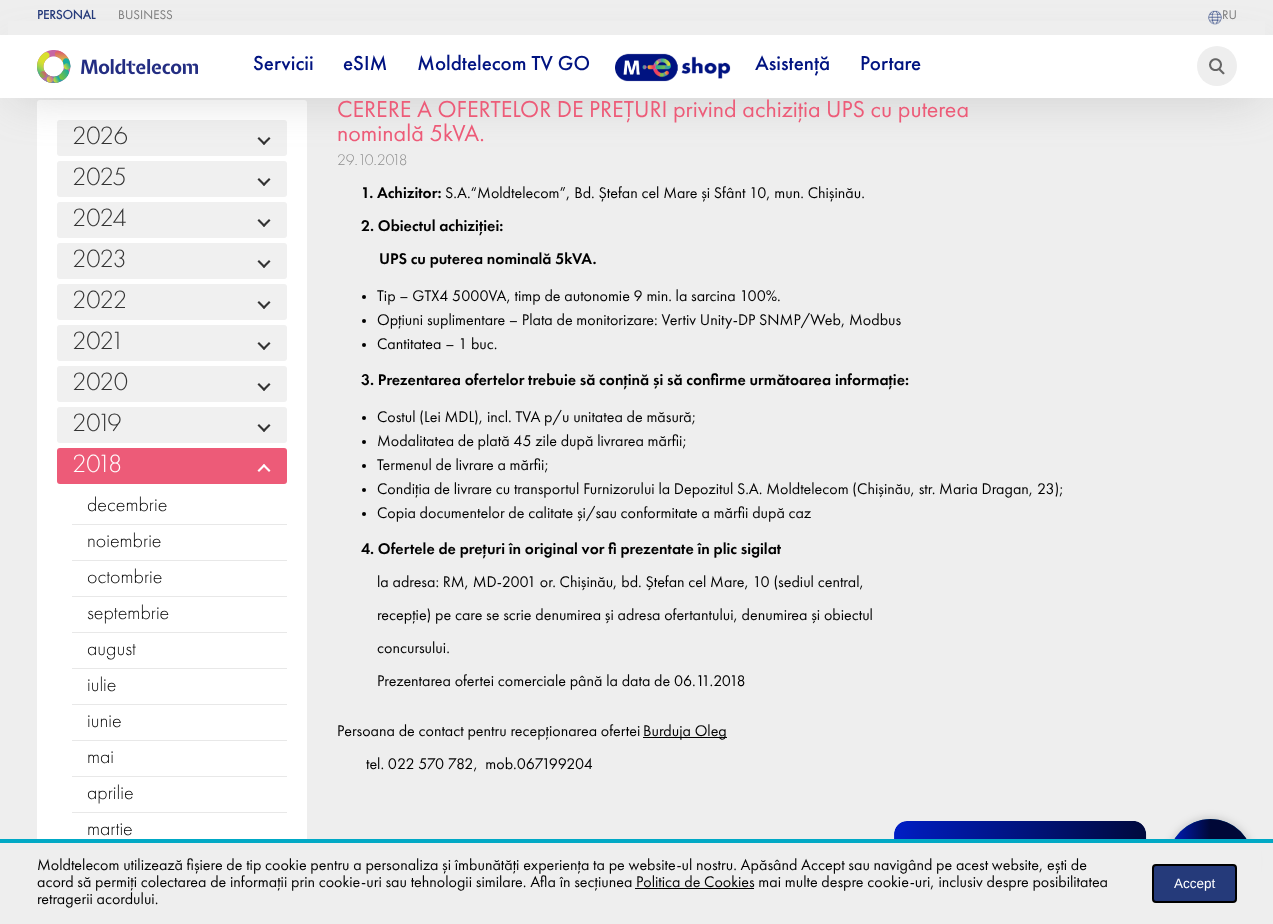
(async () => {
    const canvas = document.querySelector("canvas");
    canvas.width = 1273;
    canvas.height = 924;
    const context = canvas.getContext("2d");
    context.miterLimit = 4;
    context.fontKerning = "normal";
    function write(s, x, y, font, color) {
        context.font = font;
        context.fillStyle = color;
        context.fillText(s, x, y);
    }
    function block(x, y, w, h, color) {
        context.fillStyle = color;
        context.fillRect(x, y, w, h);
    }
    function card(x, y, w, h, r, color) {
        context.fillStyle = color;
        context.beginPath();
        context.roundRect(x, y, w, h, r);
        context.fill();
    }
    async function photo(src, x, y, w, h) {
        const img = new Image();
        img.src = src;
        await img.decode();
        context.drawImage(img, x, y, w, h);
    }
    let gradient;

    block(0, 0, 1273, 924, "rgb(238, 238, 238)");
    card(37, 100, 270, 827, 3, "rgb(255, 255, 255)");
    card(57, 120, 230, 36, 3, "rgb(240, 240, 240)");
    context.fillStyle = "rgb(51, 51, 51)";
    context.beginPath();
    context.moveTo(269, 137);
    context.lineTo(270.5, 138.5);
    context.lineTo(264, 145);
    context.lineTo(262.5, 143.5);
    context.closePath();
    context.fill();
    context.beginPath();
    context.moveTo(259, 137);
    context.lineTo(265.5, 143.5);
    context.lineTo(264, 145);
    context.lineTo(257.5, 138.5);
    context.closePath();
    context.fill();
    card(57, 161, 230, 36, 3, "rgb(240, 240, 240)");
    context.fillStyle = "rgba(133, 133, 133, 0.4)";
    context.filter = "blur(24px)";
    context.beginPath();
    context.rect(14, 58, 1245, 35);
    context.fill();
    context.filter = "none";
    block(8, 21, 1257, 14, "rgb(238, 238, 238)");
    write("PERSONAL", 37, 19, "bold 13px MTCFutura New", "rgb(37, 58, 122)");
    write("BUSINESS", 118, 19, "13px MTCFutura New", "rgb(124, 124, 124)");
    await photo("media/1.png", 1208, 10, 14, 15);
    write("RU", 1222, 19, "13px MTCFutura New", "rgb(124, 124, 124)");
    block(0, 35, 1273, 63, "rgb(255, 255, 255)");
    await photo("media/2.png", 37, 50, 161, 33);
    write("Servicii", 253, 70, "500 21px 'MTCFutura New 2'", "rgb(0, 19, 129)");
    write("eSIM", 343, 70, "500 21px 'MTCFutura New 2'", "rgb(0, 19, 129)");
    write("Moldtelecom TV GO", 417, 70, "500 21px 'MTCFutura New 2'", "rgb(0, 19, 129)");
    await photo("media/3.png", 615, 53, 116, 29);
    write("Asistență", 755, 70, "500 21px 'MTCFutura New 2'", "rgb(0, 19, 129)");
    write("Portare", 860, 70, "500 21px 'MTCFutura New 2'", "rgb(0, 19, 129)");
    context.fillStyle = "rgb(238, 238, 238)";
    context.beginPath();
    context.arc(1217, 66, 20, 0, Math.PI * 2);
    context.fill();
    await photo("media/4.png", 1209, 58, 16, 17);
    write("2026", 72, 144, "300 26px MTCFutura New", "rgb(51, 51, 51)");
    write("2025", 72, 185, "300 26px MTCFutura New", "rgb(51, 51, 51)");
    context.beginPath();
    context.moveTo(269, 178);
    context.lineTo(270.5, 179.5);
    context.lineTo(264, 186);
    context.lineTo(262.5, 184.5);
    context.closePath();
    context.fill();
    context.beginPath();
    context.moveTo(259, 178);
    context.lineTo(265.5, 184.5);
    context.lineTo(264, 186);
    context.lineTo(257.5, 179.5);
    context.closePath();
    context.fill();
    card(57, 202, 230, 36, 3, "rgb(240, 240, 240)");
    write("2024", 72, 226, "300 26px MTCFutura New", "rgb(51, 51, 51)");
    context.beginPath();
    context.moveTo(269, 219);
    context.lineTo(270.5, 220.5);
    context.lineTo(264, 227);
    context.lineTo(262.5, 225.5);
    context.closePath();
    context.fill();
    context.beginPath();
    context.moveTo(259, 219);
    context.lineTo(265.5, 225.5);
    context.lineTo(264, 227);
    context.lineTo(257.5, 220.5);
    context.closePath();
    context.fill();
    card(57, 243, 230, 36, 3, "rgb(240, 240, 240)");
    write("2023", 72, 267, "300 26px MTCFutura New", "rgb(51, 51, 51)");
    context.beginPath();
    context.moveTo(269, 260);
    context.lineTo(270.5, 261.5);
    context.lineTo(264, 268);
    context.lineTo(262.5, 266.5);
    context.closePath();
    context.fill();
    context.beginPath();
    context.moveTo(259, 260);
    context.lineTo(265.5, 266.5);
    context.lineTo(264, 268);
    context.lineTo(257.5, 261.5);
    context.closePath();
    context.fill();
    card(57, 284, 230, 36, 3, "rgb(240, 240, 240)");
    write("2022", 72, 308, "300 26px MTCFutura New", "rgb(51, 51, 51)");
    context.beginPath();
    context.moveTo(269, 301);
    context.lineTo(270.5, 302.5);
    context.lineTo(264, 309);
    context.lineTo(262.5, 307.5);
    context.closePath();
    context.fill();
    context.beginPath();
    context.moveTo(259, 301);
    context.lineTo(265.5, 307.5);
    context.lineTo(264, 309);
    context.lineTo(257.5, 302.5);
    context.closePath();
    context.fill();
    card(57, 325, 230, 36, 3, "rgb(240, 240, 240)");
    write("2021", 72, 349, "300 26px MTCFutura New", "rgb(51, 51, 51)");
    context.beginPath();
    context.moveTo(269, 342);
    context.lineTo(270.5, 343.5);
    context.lineTo(264, 350);
    context.lineTo(262.5, 348.5);
    context.closePath();
    context.fill();
    context.beginPath();
    context.moveTo(259, 342);
    context.lineTo(265.5, 348.5);
    context.lineTo(264, 350);
    context.lineTo(257.5, 343.5);
    context.closePath();
    context.fill();
    card(57, 366, 230, 36, 3, "rgb(240, 240, 240)");
    write("2020", 72, 390, "300 26px MTCFutura New", "rgb(51, 51, 51)");
    context.beginPath();
    context.moveTo(269, 383);
    context.lineTo(270.5, 384.5);
    context.lineTo(264, 391);
    context.lineTo(262.5, 389.5);
    context.closePath();
    context.fill();
    context.beginPath();
    context.moveTo(259, 383);
    context.lineTo(265.5, 389.5);
    context.lineTo(264, 391);
    context.lineTo(257.5, 384.5);
    context.closePath();
    context.fill();
    card(57, 407, 230, 36, 3, "rgb(240, 240, 240)");
    write("2019", 72, 431, "300 26px MTCFutura New", "rgb(51, 51, 51)");
    context.beginPath();
    context.moveTo(269, 424);
    context.lineTo(270.5, 425.5);
    context.lineTo(264, 432);
    context.lineTo(262.5, 430.5);
    context.closePath();
    context.fill();
    context.beginPath();
    context.moveTo(259, 424);
    context.lineTo(265.5, 430.5);
    context.lineTo(264, 432);
    context.lineTo(257.5, 425.5);
    context.closePath();
    context.fill();
    card(57, 448, 230, 36, 3, "rgb(237, 91, 120)");
    write("2018", 72, 472, "300 26px MTCFutura New", "rgb(255, 255, 255)");
    context.beginPath();
    context.moveTo(259, 472);
    context.lineTo(257.5, 470.5);
    context.lineTo(264, 464);
    context.lineTo(265.5, 465.5);
    context.closePath();
    context.fill();
    context.beginPath();
    context.moveTo(269, 472);
    context.lineTo(262.5, 465.5);
    context.lineTo(264, 464);
    context.lineTo(270.5, 470.5);
    context.closePath();
    context.fill();
    block(72, 524, 215, 1, "rgb(232, 232, 232)");
    write("decembrie", 87, 511, "300 20px MTCFutura New", "rgb(0, 0, 0)");
    block(72, 560, 215, 1, "rgb(232, 232, 232)");
    write("noiembrie", 87, 547, "300 20px MTCFutura New", "rgb(0, 0, 0)");
    block(72, 596, 215, 1, "rgb(232, 232, 232)");
    write("octombrie", 87, 583, "300 20px MTCFutura New", "rgb(0, 0, 0)");
    block(72, 632, 215, 1, "rgb(232, 232, 232)");
    write("septembrie", 87, 619, "300 20px MTCFutura New", "rgb(0, 0, 0)");
    block(72, 668, 215, 1, "rgb(232, 232, 232)");
    write("august", 87, 655, "300 20px MTCFutura New", "rgb(0, 0, 0)");
    block(72, 704, 215, 1, "rgb(232, 232, 232)");
    write("iulie", 87, 691, "300 20px MTCFutura New", "rgb(0, 0, 0)");
    block(72, 740, 215, 1, "rgb(232, 232, 232)");
    write("iunie", 87, 727, "300 20px MTCFutura New", "rgb(0, 0, 0)");
    block(72, 776, 215, 1, "rgb(232, 232, 232)");
    write("mai", 87, 763, "300 20px MTCFutura New", "rgb(0, 0, 0)");
    block(72, 812, 215, 1, "rgb(232, 232, 232)");
    write("aprilie", 87, 799, "300 20px MTCFutura New", "rgb(0, 0, 0)");
    write("martie", 87, 835, "300 20px MTCFutura New", "rgb(0, 0, 0)");
    write("CERERE A OFERTELOR DE PREŢURI privind achiziția UPS cu puterea", 337, 117, "24px MTCFutura New", "rgb(237, 91, 120)");
    write("nominală 5kVA.", 337, 141, "24px MTCFutura New", "rgb(237, 91, 120)");
    write("29.10.2018", 337, 165, "300 16px MTCFutura New", "rgb(142, 142, 142)");
    write("1. Achizitor:", 361, 198, "500 16px MTCFutura New", "rgb(0, 0, 0)");
    write("S.A.“Moldtelecom”, Bd. Ștefan cel Mare și Sfânt 10, mun. Chișinău.", 445, 198, "16px MTCFutura New", "rgb(0, 0, 0)");
    write("2. Obiectul achiziției:", 361, 231, "500 16px MTCFutura New", "rgb(0, 0, 0)");
    write("UPS cu puterea nominală 5kVA.", 379, 264, "500 16px MTCFutura New", "rgb(0, 0, 0)");
    context.beginPath();
    context.arc(364, 297, 2, 0, Math.PI * 2);
    context.fill();
    write("Tip – GTX4 5000VA, timp de autonomie 9 min. la sarcina 100%.", 377, 301, "16px MTCFutura New", "rgb(0, 0, 0)");
    context.beginPath();
    context.arc(364, 321, 2, 0, Math.PI * 2);
    context.fill();
    write("Opţiuni suplimentare – Plata de monitorizare: Vertiv Unity-DP SNMP/Web, Modbus", 377, 325, "16px MTCFutura New", "rgb(0, 0, 0)");
    context.beginPath();
    context.arc(364, 345, 2, 0, Math.PI * 2);
    context.fill();
    write("Cantitatea – 1 buc.", 377, 349, "16px MTCFutura New", "rgb(0, 0, 0)");
    write("3. Prezentarea ofertelor trebuie să conţină şi să confirme următoarea informaţie:", 361, 385, "500 16px MTCFutura New", "rgb(0, 0, 0)");
    context.beginPath();
    context.arc(364, 418, 2, 0, Math.PI * 2);
    context.fill();
    write("Costul (Lei MDL), incl. TVA p/u unitatea de măsură;", 377, 422, "16px MTCFutura New", "rgb(0, 0, 0)");
    context.beginPath();
    context.arc(364, 442, 2, 0, Math.PI * 2);
    context.fill();
    write("Modalitatea de plată 45 zile după livrarea mărfii;", 377, 446, "16px MTCFutura New", "rgb(0, 0, 0)");
    context.beginPath();
    context.arc(364, 466, 2, 0, Math.PI * 2);
    context.fill();
    write("Termenul de livrare a mărfii;", 377, 470, "16px MTCFutura New", "rgb(0, 0, 0)");
    context.beginPath();
    context.arc(364, 490, 2, 0, Math.PI * 2);
    context.fill();
    write("Condiţia de livrare cu transportul Furnizorului la Depozitul S.A. Moldtelecom (Chişinău, str. Maria Dragan, 23);", 377, 494, "16px MTCFutura New", "rgb(0, 0, 0)");
    context.beginPath();
    context.arc(364, 514, 2, 0, Math.PI * 2);
    context.fill();
    write("Copia documentelor de calitate şi/sau conformitate a mărfii după caz", 377, 518, "16px MTCFutura New", "rgb(0, 0, 0)");
    write("4. Ofertele de preţuri în original vor fi prezentate în plic sigilat", 361, 554, "500 16px MTCFutura New", "rgb(0, 0, 0)");
    write("la adresa: RM, MD-2001 or. Chişinău, bd. Ştefan cel Mare, 10 (sediul central,", 377, 587, "16px MTCFutura New", "rgb(0, 0, 0)");
    write("recepţie) pe care se scrie denumirea şi adresa ofertantului, denumirea şi obiectul", 377, 620, "16px MTCFutura New", "rgb(0, 0, 0)");
    write("concursului.", 377, 653, "16px MTCFutura New", "rgb(0, 0, 0)");
    write("Prezentarea ofertei comerciale până la data de 06.11.2018", 377, 686, "16px MTCFutura New", "rgb(0, 0, 0)");
    write("Persoana de contact pentru recepţionarea ofertei", 337, 736, "16px MTCFutura New", "rgb(0, 0, 0)");
    block(643, 737, 84, 1, "rgb(0, 0, 0)");
    write("Burduja Oleg", 643, 736, "16px MTCFutura New", "rgb(0, 0, 0)");
    write("tel. 022 570 782,  mob.067199204", 366, 769, "16px MTCFutura New", "rgb(0, 0, 0)");
    await photo("media/6.png", 1174, 819, 73, 20);
    await photo("media/7.png", 1174, 819, 73, 20);
    context.fillStyle = "rgba(0, 0, 0, 0.2)";
    context.filter = "blur(5px)";
    context.beginPath();
    context.roundRect(1168, 819, 85, 85, 42.5);
    context.fill();
    context.filter = "none";
    gradient = context.createLinearGradient(1168, 862, 1253, 862);
    gradient.addColorStop(0, "rgb(0, 30, 198)");
    gradient.addColorStop(0.5, "rgb(0, 8, 55)");
    context.fillStyle = gradient;
    context.beginPath();
    context.arc(1210.5, 861.5, 42.5, 0, Math.PI * 2);
    context.fill();
    await photo("media/5.png", 894, 821, 253, 18);
    gradient = context.createLinearGradient(657, 839, 657, 924);
    gradient.addColorStop(0, "rgb(0, 169, 198)");
    gradient.addColorStop(1, "rgb(40, 167, 154)");
    context.fillStyle = gradient;
    context.fillRect(0, 839, 1273, 4);
    block(37, 843, 1224, 81, "rgb(238, 238, 238)");
    write("Moldtelecom utilizează fișiere de tip cookie pentru a personaliza și îmbunătăți experiența ta pe website-ul nostru. Apăsând Accept sau navigând pe acest website, ești de", 37, 870, "16px MTCFutura New", "rgb(0, 0, 0)");
    write("acord să permiți colectarea de informații prin cookie-uri sau tehnologii similare. Afla în secțiunea Politica de Cookies mai multe despre cookie-uri, inclusiv despre posibilitatea", 37, 887, "16px MTCFutura New", "rgb(0, 0, 0)");
    block(635, 888, 119, 1, "rgb(0, 0, 0)");
    write("retragerii acordului.", 37, 904, "16px MTCFutura New", "rgb(0, 0, 0)");
    context.fillStyle = "rgb(37, 58, 122)";
    context.beginPath();
    context.roundRect(1153, 865, 83, 37, 3);
    context.fill();
    context.strokeStyle = "rgb(0, 0, 0)";
    context.lineWidth = 2;
    context.stroke();
    write("Accept", 1174, 888, "13.5px Liberation Sans", "rgb(255, 255, 255)");
})();
